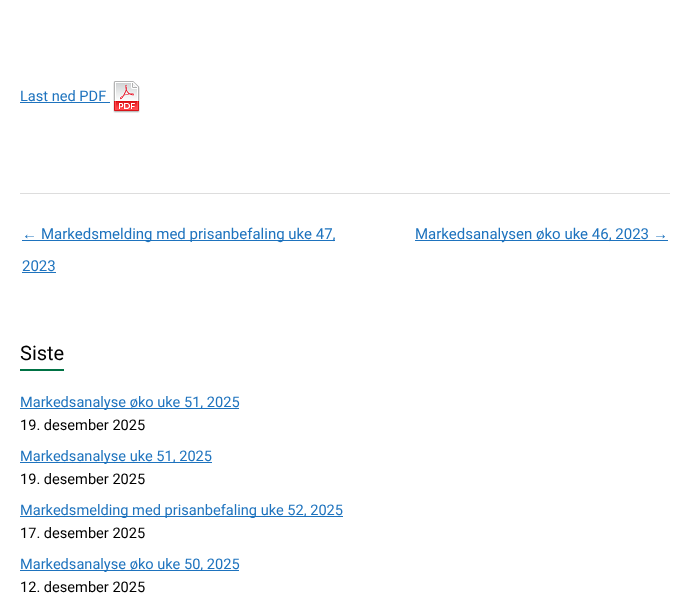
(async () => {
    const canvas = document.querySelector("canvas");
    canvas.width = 690;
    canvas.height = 609;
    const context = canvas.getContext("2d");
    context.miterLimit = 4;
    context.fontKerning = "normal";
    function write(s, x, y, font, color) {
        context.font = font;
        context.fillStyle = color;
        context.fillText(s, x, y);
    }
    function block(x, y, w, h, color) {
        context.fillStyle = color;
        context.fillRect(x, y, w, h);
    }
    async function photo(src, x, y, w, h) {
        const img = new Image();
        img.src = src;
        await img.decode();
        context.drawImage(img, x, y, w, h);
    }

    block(0, 0, 690, 609, "rgb(255, 255, 255)");
    write("Last ned PDF", 20, 101, "14.6px Roboto", "rgb(30, 115, 190)");
    block(20, 102, 90, 1, "rgb(30, 115, 190)");
    await photo("media/1.png", 113, 81, 27, 32);
    block(20, 193, 650, 1, "rgb(221, 221, 221)");
    write("←", 22, 239, "15px Liberation Sans", "rgb(30, 115, 190)");
    block(22, 240, 313, 1, "rgb(30, 115, 190)");
    write("Markedsmelding med prisanbefaling uke 47,", 41, 239, "15px Roboto", "rgb(30, 115, 190)");
    write("2023", 22, 271, "15px Roboto", "rgb(30, 115, 190)");
    block(22, 272, 34, 1, "rgb(30, 115, 190)");
    block(415, 240, 253, 1, "rgb(30, 115, 190)");
    write("Markedsanalysen øko uke 46, 2023", 415, 239, "15px Roboto", "rgb(30, 115, 190)");
    write("→", 653, 239, "15px Liberation Sans", "rgb(30, 115, 190)");
    block(20, 369, 44, 2, "rgb(0, 114, 68)");
    write("Siste", 20, 360, "20px Roboto", "rgb(0, 0, 0)");
    block(20, 408, 219, 1, "rgb(30, 115, 190)");
    write("Markedsanalyse øko uke 51, 2025", 20, 407, "14.6px Roboto", "rgb(30, 115, 190)");
    write("19. desember 2025", 20, 430, "14.6px Roboto", "rgb(0, 0, 0)");
    block(20, 462, 192, 1, "rgb(30, 115, 190)");
    write("Markedsanalyse uke 51, 2025", 20, 461, "14.6px Roboto", "rgb(30, 115, 190)");
    write("19. desember 2025", 20, 484, "14.6px Roboto", "rgb(0, 0, 0)");
    block(20, 516, 323, 1, "rgb(30, 115, 190)");
    write("Markedsmelding med prisanbefaling uke 52, 2025", 20, 515, "14.6px Roboto", "rgb(30, 115, 190)");
    write("17. desember 2025", 20, 538, "14.6px Roboto", "rgb(0, 0, 0)");
    block(20, 570, 219, 1, "rgb(30, 115, 190)");
    write("Markedsanalyse øko uke 50, 2025", 20, 569, "14.6px Roboto", "rgb(30, 115, 190)");
    write("12. desember 2025", 20, 592, "14.6px Roboto", "rgb(0, 0, 0)");
})();
